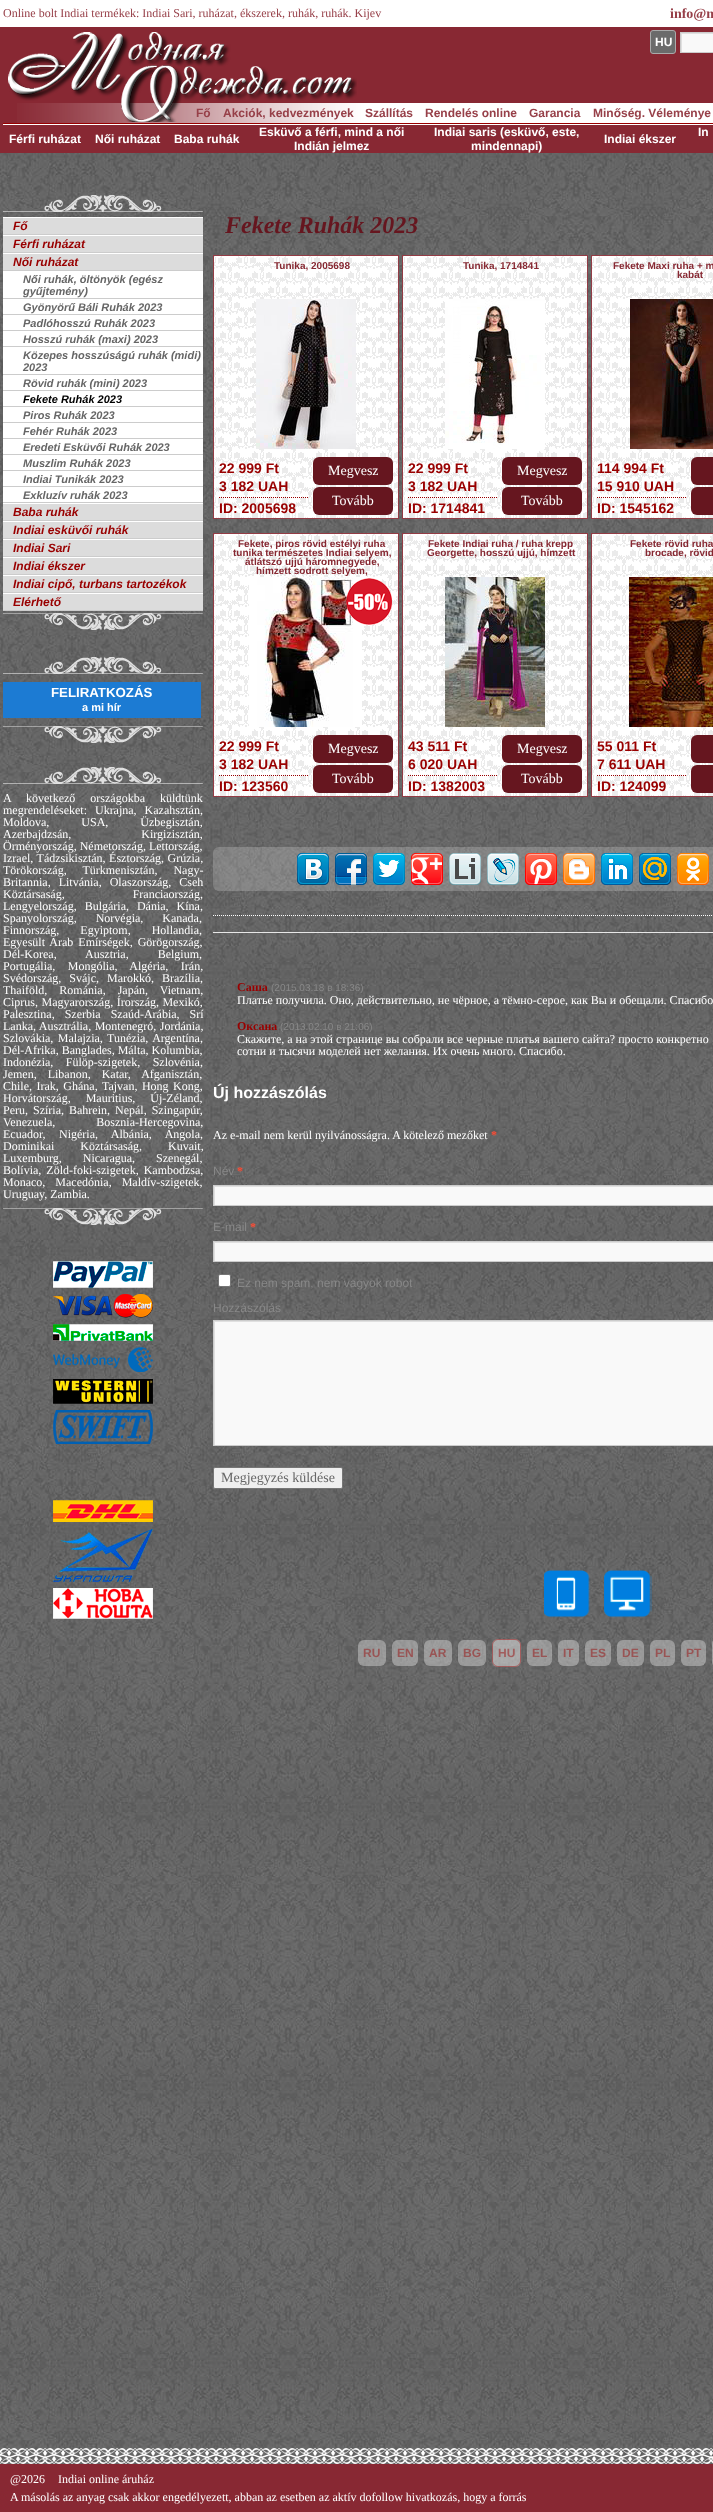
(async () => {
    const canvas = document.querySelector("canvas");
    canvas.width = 713;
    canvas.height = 2512;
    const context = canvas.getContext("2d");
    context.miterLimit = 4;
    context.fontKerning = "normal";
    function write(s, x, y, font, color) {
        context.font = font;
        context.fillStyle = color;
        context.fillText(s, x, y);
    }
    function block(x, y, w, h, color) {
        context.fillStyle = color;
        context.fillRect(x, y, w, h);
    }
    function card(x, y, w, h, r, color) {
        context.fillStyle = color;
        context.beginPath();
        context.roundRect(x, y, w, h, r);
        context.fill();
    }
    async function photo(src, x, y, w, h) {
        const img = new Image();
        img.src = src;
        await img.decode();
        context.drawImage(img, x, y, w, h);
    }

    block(0, 0, 713, 2512, "rgb(255, 255, 255)");
    await photo("media/1.png", 0, 153, 713, 2311);
    write("Online bolt Indiai termékek: Indiai Sari, ruházat, ékszerek, ruhák, ruhák. Kijev", 3, 17, "12px Liberation Serif", "rgb(151, 64, 73)");
    write("info@m", 670, 18, "bold 14px Liberation Serif", "rgb(151, 64, 73)");
    block(0, 27, 713, 126, "rgb(136, 40, 51)");
    await photo("media/3.png", 17, 103, 696, 20);
    await photo("media/2.png", 8, 32, 349, 90);
    context.fillStyle = "rgb(107, 107, 107)";
    context.beginPath();
    context.roundRect(650.5, 30.5, 25, 23, 2.5);
    context.fill();
    context.strokeStyle = "rgb(170, 170, 170)";
    context.stroke();
    write("HU", 655, 46, "bold 12px Liberation Sans", "rgb(255, 255, 255)");
    block(682, 34, 31, 18, "rgb(249, 249, 249)");
    context.save();
    context.beginPath();
    context.rect(681, 33, 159, 19);
    context.clip();
    context.fillStyle = "rgb(224, 224, 224)";
    context.beginPath();
    context.moveTo(582, -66);
    context.lineTo(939, -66);
    context.lineTo(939, 151);
    context.lineTo(582, 151);
    context.closePath();
    context.moveTo(682, 34);
    context.lineTo(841, 34);
    context.lineTo(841, 53);
    context.lineTo(682, 53);
    context.closePath();
    context.fill("evenodd");
    context.restore();
    context.strokeStyle = "rgb(204, 204, 204)";
    context.strokeRect(680.5, 32.5, 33, 20);
    block(3, 123, 710, 1, "rgb(153, 0, 0)");
    write("Fő", 196, 117, "bold 12px Liberation Sans", "rgb(151, 64, 73)");
    write("Akciók, kedvezmények", 223, 117, "bold 12px Liberation Sans", "rgb(151, 64, 73)");
    write("Szállítás", 365, 117, "bold 12px Liberation Sans", "rgb(151, 64, 73)");
    write("Rendelés online", 425, 117, "bold 12px Liberation Sans", "rgb(151, 64, 73)");
    write("Garancia", 529, 117, "bold 12px Liberation Sans", "rgb(151, 64, 73)");
    write("Minőség. Véleménye", 593, 117, "bold 12px Liberation Sans", "rgb(151, 64, 73)");
    block(3, 124, 710, 1, "rgb(255, 255, 255)");
    write("Esküvő a férfi, mind a női", 259, 136, "bold 12px Liberation Sans", "rgb(255, 255, 255)");
    write("Indián jelmez", 294, 150, "bold 12px Liberation Sans", "rgb(255, 255, 255)");
    write("Indiai saris (esküvő, este,", 434, 136, "bold 12px Liberation Sans", "rgb(255, 255, 255)");
    write("mindennapi)", 471, 150, "bold 12px Liberation Sans", "rgb(255, 255, 255)");
    write("In", 698, 136, "bold 12px Liberation Sans", "rgb(255, 255, 255)");
    write("Férfi ruházat", 9, 143, "bold 12px Liberation Sans", "rgb(255, 255, 255)");
    write("Női ruházat", 95, 143, "bold 12px Liberation Sans", "rgb(255, 255, 255)");
    write("Baba ruhák", 174, 143, "bold 12px Liberation Sans", "rgb(255, 255, 255)");
    write("Indiai ékszer", 604, 143, "bold 12px Liberation Sans", "rgb(255, 255, 255)");
    await photo("media/4.png", 3, 195, 200, 17);
    block(3, 218, 200, 16, "rgb(220, 220, 220)");
    block(3, 217, 200, 1, "rgb(255, 255, 255)");
    block(3, 234, 200, 1, "rgb(204, 204, 204)");
    write("Fő", 13, 230, "italic bold 12px Liberation Sans", "rgb(153, 0, 0)");
    block(3, 236, 200, 16, "rgb(220, 220, 220)");
    block(3, 235, 200, 1, "rgb(255, 255, 255)");
    block(3, 252, 200, 1, "rgb(204, 204, 204)");
    write("Férfi ruházat", 13, 248, "italic bold 12px Liberation Sans", "rgb(153, 0, 0)");
    block(3, 254, 200, 16, "rgb(220, 220, 220)");
    block(3, 253, 200, 1, "rgb(255, 255, 255)");
    block(3, 270, 200, 1, "rgb(204, 204, 204)");
    write("Női ruházat", 13, 266, "italic bold 12px Liberation Sans", "rgb(153, 0, 0)");
    block(3, 271, 200, 27, "rgb(255, 255, 255)");
    block(3, 298, 200, 1, "rgb(204, 204, 204)");
    write("Női ruhák, öltönyök (egész", 23, 283, "italic bold 11px Liberation Sans", "rgb(102, 102, 102)");
    write("gyűjtemény)", 23, 295, "italic bold 11px Liberation Sans", "rgb(102, 102, 102)");
    block(3, 299, 200, 15, "rgb(255, 255, 255)");
    block(3, 314, 200, 1, "rgb(204, 204, 204)");
    write("Gyönyörű Báli Ruhák 2023", 23, 311, "italic bold 11px Liberation Sans", "rgb(102, 102, 102)");
    block(3, 315, 200, 15, "rgb(255, 255, 255)");
    block(3, 330, 200, 1, "rgb(204, 204, 204)");
    write("Padlóhosszú Ruhák 2023", 23, 327, "italic bold 11px Liberation Sans", "rgb(102, 102, 102)");
    block(3, 331, 200, 15, "rgb(255, 255, 255)");
    block(3, 346, 200, 1, "rgb(204, 204, 204)");
    write("Hosszú ruhák (maxi) 2023", 23, 343, "italic bold 11px Liberation Sans", "rgb(102, 102, 102)");
    block(3, 347, 200, 27, "rgb(255, 255, 255)");
    block(3, 374, 200, 1, "rgb(204, 204, 204)");
    write("Közepes hosszúságú ruhák (midi)", 23, 359, "italic bold 11px Liberation Sans", "rgb(102, 102, 102)");
    write("2023", 23, 371, "italic bold 11px Liberation Sans", "rgb(102, 102, 102)");
    block(3, 375, 200, 15, "rgb(255, 255, 255)");
    block(3, 390, 200, 1, "rgb(204, 204, 204)");
    write("Rövid ruhák (mini) 2023", 23, 387, "italic bold 11px Liberation Sans", "rgb(102, 102, 102)");
    block(3, 391, 200, 15, "rgb(255, 255, 255)");
    block(3, 406, 200, 1, "rgb(204, 204, 204)");
    write("Fekete Ruhák 2023", 23, 403, "italic bold 11px Liberation Sans", "rgb(0, 0, 0)");
    block(3, 407, 200, 15, "rgb(255, 255, 255)");
    block(3, 422, 200, 1, "rgb(204, 204, 204)");
    write("Piros Ruhák 2023", 23, 419, "italic bold 11px Liberation Sans", "rgb(102, 102, 102)");
    block(3, 423, 200, 15, "rgb(255, 255, 255)");
    block(3, 438, 200, 1, "rgb(204, 204, 204)");
    write("Fehér Ruhák 2023", 23, 435, "italic bold 11px Liberation Sans", "rgb(102, 102, 102)");
    block(3, 439, 200, 15, "rgb(255, 255, 255)");
    block(3, 454, 200, 1, "rgb(204, 204, 204)");
    write("Eredeti Esküvői Ruhák 2023", 23, 451, "italic bold 11px Liberation Sans", "rgb(102, 102, 102)");
    block(3, 455, 200, 15, "rgb(255, 255, 255)");
    block(3, 470, 200, 1, "rgb(204, 204, 204)");
    write("Muszlim Ruhák 2023", 23, 467, "italic bold 11px Liberation Sans", "rgb(102, 102, 102)");
    block(3, 471, 200, 15, "rgb(255, 255, 255)");
    block(3, 486, 200, 1, "rgb(204, 204, 204)");
    write("Indiai Tunikák 2023", 23, 483, "italic bold 11px Liberation Sans", "rgb(102, 102, 102)");
    block(3, 487, 200, 15, "rgb(255, 255, 255)");
    block(3, 502, 200, 1, "rgb(204, 204, 204)");
    write("Exkluzív ruhák 2023", 23, 499, "italic bold 11px Liberation Sans", "rgb(102, 102, 102)");
    block(3, 504, 200, 16, "rgb(220, 220, 220)");
    block(3, 503, 200, 1, "rgb(255, 255, 255)");
    block(3, 520, 200, 1, "rgb(204, 204, 204)");
    write("Baba ruhák", 13, 516, "italic bold 12px Liberation Sans", "rgb(153, 0, 0)");
    block(3, 522, 200, 16, "rgb(220, 220, 220)");
    block(3, 521, 200, 1, "rgb(255, 255, 255)");
    block(3, 538, 200, 1, "rgb(204, 204, 204)");
    write("Indiai esküvői ruhák", 13, 534, "italic bold 12px Liberation Sans", "rgb(153, 0, 0)");
    block(3, 540, 200, 16, "rgb(220, 220, 220)");
    block(3, 539, 200, 1, "rgb(255, 255, 255)");
    block(3, 556, 200, 1, "rgb(204, 204, 204)");
    write("Indiai Sari", 13, 552, "italic bold 12px Liberation Sans", "rgb(153, 0, 0)");
    block(3, 558, 200, 16, "rgb(220, 220, 220)");
    block(3, 557, 200, 1, "rgb(255, 255, 255)");
    block(3, 574, 200, 1, "rgb(204, 204, 204)");
    write("Indiai ékszer", 13, 570, "italic bold 12px Liberation Sans", "rgb(153, 0, 0)");
    block(3, 576, 200, 16, "rgb(220, 220, 220)");
    block(3, 575, 200, 1, "rgb(255, 255, 255)");
    block(3, 592, 200, 1, "rgb(204, 204, 204)");
    write("Indiai cipő, turbans tartozékok", 13, 588, "italic bold 12px Liberation Sans", "rgb(153, 0, 0)");
    block(3, 594, 200, 16, "rgb(220, 220, 220)");
    block(3, 593, 200, 1, "rgb(255, 255, 255)");
    block(3, 610, 200, 1, "rgb(204, 204, 204)");
    write("Elérhető", 13, 606, "italic bold 12px Liberation Sans", "rgb(153, 0, 0)");
    await photo("media/5.png", 3, 613, 200, 17);
    await photo("media/6.png", 3, 657, 200, 17);
    block(3, 682, 198, 36, "rgb(28, 123, 211)");
    write("FELIRATKOZÁS", 51, 697, "bold 13.25px Liberation Sans", "rgb(255, 255, 255)");
    write("a mi hír", 82, 711, "bold 11px Liberation Sans", "rgb(255, 255, 255)");
    await photo("media/7.png", 3, 726, 200, 17);
    await photo("media/8.png", 3, 767, 200, 17);
    context.wordSpacing = "12px";
    write("A következő országokba küldtünk", 3, 802, "12px Liberation Serif", "rgb(255, 255, 255)");
    context.wordSpacing = "5px";
    write("megrendeléseket: Ukrajna, Kazahsztán,", 3, 814, "12px Liberation Serif", "rgb(255, 255, 255)");
    context.wordSpacing = "29px";
    write("Moldova, USA, Üzbegisztán,", 3, 826, "12px Liberation Serif", "rgb(255, 255, 255)");
    context.wordSpacing = "67px";
    write("Azerbajdzsán, Kirgizisztán,", 3, 838, "12px Liberation Serif", "rgb(255, 255, 255)");
    context.wordSpacing = "0px";
    write("Örményország, Németország, Lettország,", 3, 850, "12px Liberation Serif", "rgb(255, 255, 255)");
    context.wordSpacing = "0.5px";
    write("Izrael, Tádzsikisztán, Észtország, Grúzia,", 3, 862, "12px Liberation Serif", "rgb(255, 255, 255)");
    context.wordSpacing = "13px";
    write("Törökország, Türkmenisztán, Nagy-", 3, 874, "12px Liberation Serif", "rgb(255, 255, 255)");
    context.wordSpacing = "5px";
    write("Britannia, Litvánia, Olaszország, Cseh", 3, 886, "12px Liberation Serif", "rgb(255, 255, 255)");
    context.wordSpacing = "65px";
    write("Köztársaság, Franciaország,", 3, 898, "12px Liberation Serif", "rgb(255, 255, 255)");
    context.wordSpacing = "5px";
    write("Lengyelország, Bulgária, Dánia, Kína,", 3, 910, "12px Liberation Serif", "rgb(255, 255, 255)");
    context.wordSpacing = "16px";
    write("Spanyolország, Norvégia, Kanada,", 3, 922, "12px Liberation Serif", "rgb(255, 255, 255)");
    context.wordSpacing = "18px";
    write("Finnország, Egyiptom, Hollandia,", 3, 934, "12px Liberation Serif", "rgb(255, 255, 255)");
    context.wordSpacing = "2px";
    write("Egyesült Arab Emírségek, Görögország,", 3, 946, "12px Liberation Serif", "rgb(255, 255, 255)");
    context.wordSpacing = "26px";
    write("Dél-Korea, Ausztria, Belgium,", 3, 958, "12px Liberation Serif", "rgb(255, 255, 255)");
    context.wordSpacing = "9.5px";
    write("Portugália, Mongólia, Algéria, Irán,", 3, 970, "12px Liberation Serif", "rgb(255, 255, 255)");
    context.wordSpacing = "5px";
    write("Svédország, Svájc, Marokkó, Brazília,", 3, 982, "12px Liberation Serif", "rgb(255, 255, 255)");
    context.wordSpacing = "9px";
    write("Thaiföld, Románia, Japán, Vietnam,", 3, 994, "12px Liberation Serif", "rgb(255, 255, 255)");
    context.wordSpacing = "0.5px";
    write("Ciprus, Magyarország, Írország, Mexikó,", 3, 1006, "12px Liberation Serif", "rgb(255, 255, 255)");
    context.wordSpacing = "7px";
    write("Palesztina, Szerbia Szaúd-Arábia, Srí", 3, 1018, "12px Liberation Serif", "rgb(255, 255, 255)");
    context.wordSpacing = "0.5px";
    write("Lanka, Ausztrália, Montenegró, Jordánia,", 3, 1030, "12px Liberation Serif", "rgb(255, 255, 255)");
    context.wordSpacing = "1.5px";
    write("Szlovákia, Malajzia, Tunézia, Argentína,", 3, 1042, "12px Liberation Serif", "rgb(255, 255, 255)");
    context.wordSpacing = "0px";
    write("Dél-Afrika, Banglades, Málta, Kolumbia,", 3, 1054, "12px Liberation Serif", "rgb(255, 255, 255)");
    context.wordSpacing = "9.5px";
    write("Indonézia, Fülöp-szigetek, Szlovénia,", 3, 1066, "12px Liberation Serif", "rgb(255, 255, 255)");
    context.wordSpacing = "8px";
    write("Jemen, Libanon, Katar, Afganisztán,", 3, 1078, "12px Liberation Serif", "rgb(255, 255, 255)");
    context.wordSpacing = "1.5px";
    write("Chile, Irak, Ghána, Tajvan, Hong Kong,", 3, 1090, "12px Liberation Serif", "rgb(255, 255, 255)");
    context.wordSpacing = "12px";
    write("Horvátország, Mauritius, Új-Zéland,", 3, 1102, "12px Liberation Serif", "rgb(255, 255, 255)");
    context.wordSpacing = "2px";
    write("Peru, Szíria, Bahrein, Nepál, Szingapúr,", 3, 1114, "12px Liberation Serif", "rgb(255, 255, 255)");
    context.wordSpacing = "38px";
    write("Venezuela, Bosznia-Hercegovina,", 3, 1126, "12px Liberation Serif", "rgb(255, 255, 255)");
    context.wordSpacing = "10.5px";
    write("Ecuador, Nigéria, Albánia, Angola,", 3, 1138, "12px Liberation Serif", "rgb(255, 255, 255)");
    context.wordSpacing = "23px";
    write("Dominikai Köztársaság, Kuvait,", 3, 1150, "12px Liberation Serif", "rgb(255, 255, 255)");
    context.wordSpacing = "18px";
    write("Luxemburg, Nicaragua, Szenegál,", 3, 1162, "12px Liberation Serif", "rgb(255, 255, 255)");
    context.wordSpacing = "2px";
    write("Bolívia, Zöld-foki-szigetek, Kambodzsa,", 3, 1174, "12px Liberation Serif", "rgb(255, 255, 255)");
    context.wordSpacing = "7px";
    write("Monaco, Macedónia, Maldív-szigetek,", 3, 1186, "12px Liberation Serif", "rgb(255, 255, 255)");
    context.wordSpacing = "0px";
    write("Uruguay, Zambia.", 3, 1198, "12px Liberation Serif", "rgb(255, 255, 255)");
    await photo("media/9.png", 3, 1208, 200, 17);
    await photo("media/10.png", 53, 1261, 100, 183);
    await photo("media/11.png", 53, 1500, 100, 119);
    write("Fekete Ruhák 2023", 225, 233, "italic bold 24px Liberation Serif", "rgb(102, 22, 31)");
    await photo("media/12.png", 214, 256, 184, 262);
    context.strokeStyle = "rgb(147, 60, 69)";
    context.strokeRect(213.5, 255.5, 185, 263);
    write("Tunika, 2005698", 274, 269, "bold 10px Liberation Sans", "rgb(135, 40, 50)");
    await photo("media/13.png", 256, 299, 100, 150);
    write("22 999 Ft", 219, 473, "bold 14px Liberation Sans", "rgb(153, 0, 0)");
    write("3 182 UAH", 219, 491, "bold 14px Liberation Sans", "rgb(153, 0, 0)");
    context.beginPath();
    context.moveTo(219, 497.5);
    context.lineTo(309, 497.5);
    context.strokeStyle = "rgb(153, 0, 0)";
    context.setLineDash([1, 1]);
    context.stroke();
    write("ID: 2005698", 219, 513, "bold 14px Liberation Sans", "rgb(153, 0, 0)");
    card(313, 457, 80, 28, 6, "rgb(102, 22, 31)");
    write("Megvesz", 328, 475, "14px Liberation Serif", "rgb(255, 255, 255)");
    card(313, 487, 80, 28, 6, "rgb(102, 22, 31)");
    write("Tovább", 332, 505, "14px Liberation Serif", "rgb(255, 255, 255)");
    await photo("media/12.png", 403, 256, 184, 262);
    context.strokeStyle = "rgb(147, 60, 69)";
    context.setLineDash([]);
    context.strokeRect(402.5, 255.5, 185, 263);
    write("Tunika, 1714841", 463, 269, "bold 10px Liberation Sans", "rgb(135, 40, 50)");
    await photo("media/14.png", 445, 299, 100, 150);
    write("22 999 Ft", 408, 473, "bold 14px Liberation Sans", "rgb(153, 0, 0)");
    write("3 182 UAH", 408, 491, "bold 14px Liberation Sans", "rgb(153, 0, 0)");
    context.beginPath();
    context.moveTo(408, 497.5);
    context.lineTo(498, 497.5);
    context.strokeStyle = "rgb(153, 0, 0)";
    context.setLineDash([1, 1]);
    context.stroke();
    write("ID: 1714841", 408, 513, "bold 14px Liberation Sans", "rgb(153, 0, 0)");
    card(502, 457, 80, 28, 6, "rgb(102, 22, 31)");
    write("Megvesz", 517, 475, "14px Liberation Serif", "rgb(255, 255, 255)");
    card(502, 487, 80, 28, 6, "rgb(102, 22, 31)");
    write("Tovább", 521, 505, "14px Liberation Serif", "rgb(255, 255, 255)");
    await photo("media/15.png", 592, 256, 121, 262);
    context.strokeStyle = "rgb(147, 60, 69)";
    context.setLineDash([]);
    context.strokeRect(591.5, 255.5, 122, 263);
    write("Fekete Maxi ruha + m", 613, 269, "bold 10px Liberation Sans", "rgb(135, 40, 50)");
    write("kabát", 677, 278, "bold 10px Liberation Sans", "rgb(135, 40, 50)");
    await photo("media/16.png", 630, 299, 83, 150);
    write("114 994 Ft", 597, 473, "bold 14px Liberation Sans", "rgb(153, 0, 0)");
    write("15 910 UAH", 597, 491, "bold 14px Liberation Sans", "rgb(153, 0, 0)");
    context.beginPath();
    context.moveTo(597, 497.5);
    context.lineTo(687, 497.5);
    context.strokeStyle = "rgb(153, 0, 0)";
    context.setLineDash([1, 1]);
    context.stroke();
    write("ID: 1545162", 597, 513, "bold 14px Liberation Sans", "rgb(153, 0, 0)");
    card(691, 457, 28, 28, 6, "rgb(102, 22, 31)");
    card(691, 487, 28, 28, 6, "rgb(102, 22, 31)");
    await photo("media/12.png", 214, 534, 184, 262);
    context.strokeStyle = "rgb(147, 60, 69)";
    context.setLineDash([]);
    context.strokeRect(213.5, 533.5, 185, 263);
    write("Fekete, piros rövid estélyi ruha", 238, 547, "bold 10px Liberation Sans", "rgb(135, 40, 50)");
    write("tunika természetes Indiai selyem,", 233, 556, "bold 10px Liberation Sans", "rgb(135, 40, 50)");
    write("átlátszó ujjú háromnegyede,", 245, 565, "bold 10px Liberation Sans", "rgb(135, 40, 50)");
    write("hímzett sodrott selyem,", 256, 574, "bold 10px Liberation Sans", "rgb(135, 40, 50)");
    await photo("media/17.png", 249, 577, 113, 150);
    await photo("media/18.png", 346, 578, 46, 47);
    write("22 999 Ft", 219, 751, "bold 14px Liberation Sans", "rgb(153, 0, 0)");
    write("3 182 UAH", 219, 769, "bold 14px Liberation Sans", "rgb(153, 0, 0)");
    context.beginPath();
    context.moveTo(219, 775.5);
    context.lineTo(309, 775.5);
    context.strokeStyle = "rgb(153, 0, 0)";
    context.setLineDash([1, 1]);
    context.stroke();
    write("ID: 123560", 219, 791, "bold 14px Liberation Sans", "rgb(153, 0, 0)");
    card(313, 735, 80, 28, 6, "rgb(102, 22, 31)");
    write("Megvesz", 328, 753, "14px Liberation Serif", "rgb(255, 255, 255)");
    card(313, 765, 80, 28, 6, "rgb(102, 22, 31)");
    write("Tovább", 332, 783, "14px Liberation Serif", "rgb(255, 255, 255)");
    await photo("media/12.png", 403, 534, 184, 262);
    context.strokeStyle = "rgb(147, 60, 69)";
    context.setLineDash([]);
    context.strokeRect(402.5, 533.5, 185, 263);
    write("Fekete Indiai ruha / ruha krepp", 428, 547, "bold 10px Liberation Sans", "rgb(135, 40, 50)");
    write("Georgette, hosszú ujjú, hímzett", 427, 556, "bold 10px Liberation Sans", "rgb(135, 40, 50)");
    await photo("media/19.png", 445, 577, 100, 150);
    write("43 511 Ft", 408, 751, "bold 14px Liberation Sans", "rgb(153, 0, 0)");
    write("6 020 UAH", 408, 769, "bold 14px Liberation Sans", "rgb(153, 0, 0)");
    context.beginPath();
    context.moveTo(408, 775.5);
    context.lineTo(498, 775.5);
    context.strokeStyle = "rgb(153, 0, 0)";
    context.setLineDash([1, 1]);
    context.stroke();
    write("ID: 1382003", 408, 791, "bold 14px Liberation Sans", "rgb(153, 0, 0)");
    card(502, 735, 80, 28, 6, "rgb(102, 22, 31)");
    write("Megvesz", 517, 753, "14px Liberation Serif", "rgb(255, 255, 255)");
    card(502, 765, 80, 28, 6, "rgb(102, 22, 31)");
    write("Tovább", 521, 783, "14px Liberation Serif", "rgb(255, 255, 255)");
    await photo("media/15.png", 592, 534, 121, 262);
    context.strokeStyle = "rgb(147, 60, 69)";
    context.setLineDash([]);
    context.strokeRect(591.5, 533.5, 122, 263);
    write("Fekete rövid ruha", 630, 547, "bold 10px Liberation Sans", "rgb(135, 40, 50)");
    write("brocade, rövid", 645, 556, "bold 10px Liberation Sans", "rgb(135, 40, 50)");
    await photo("media/20.png", 629, 577, 84, 150);
    write("55 011 Ft", 597, 751, "bold 14px Liberation Sans", "rgb(153, 0, 0)");
    write("7 611 UAH", 597, 769, "bold 14px Liberation Sans", "rgb(153, 0, 0)");
    context.beginPath();
    context.moveTo(597, 775.5);
    context.lineTo(687, 775.5);
    context.strokeStyle = "rgb(153, 0, 0)";
    context.setLineDash([1, 1]);
    context.stroke();
    write("ID: 124099", 597, 791, "bold 14px Liberation Sans", "rgb(153, 0, 0)");
    card(691, 735, 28, 28, 6, "rgb(102, 22, 31)");
    card(691, 765, 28, 28, 6, "rgb(102, 22, 31)");
    card(213, 847, 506, 44, 6, "rgba(255, 255, 255, 0.2)");
    await photo("media/21.png", 297, 853, 32, 32);
    await photo("media/22.png", 335, 853, 32, 32);
    await photo("media/23.png", 373, 853, 32, 32);
    await photo("media/24.png", 411, 853, 32, 32);
    await photo("media/25.png", 449, 853, 32, 32);
    await photo("media/26.png", 487, 853, 32, 32);
    await photo("media/27.png", 525, 853, 32, 32);
    await photo("media/28.png", 563, 853, 32, 32);
    await photo("media/29.png", 601, 853, 32, 32);
    await photo("media/30.png", 639, 853, 32, 32);
    await photo("media/31.png", 677, 853, 32, 32);
    context.beginPath();
    context.moveTo(213, 915.5);
    context.lineTo(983, 915.5);
    context.strokeStyle = "rgb(255, 255, 255)";
    context.stroke();
    block(213, 932, 500, 1, "rgb(231, 231, 231)");
    write("Саша", 237, 991, "bold 12px Liberation Serif", "rgb(153, 0, 0)");
    write("(2015.03.18 в 18:36)", 271, 991, "10px Liberation Sans", "rgb(136, 136, 136)");
    write("Платье получила. Оно, действительно, не чёрное, а тёмно-серое, как Вы и обещали. Спасибо", 237, 1004, "12px Liberation Serif", "rgb(255, 255, 255)");
    write("Оксана", 237, 1030, "bold 12px Liberation Serif", "rgb(153, 0, 0)");
    write("(2013.02.10 в 21:06)", 280, 1030, "10px Liberation Sans", "rgb(136, 136, 136)");
    write("Скажите, а на этой странице вы собрали все черные платья вашего сайта? просто конкретно", 237, 1043, "12px Liberation Serif", "rgb(255, 255, 255)");
    write("сотни и тысячи моделей нет желания. Их очень много. Спасибо.", 237, 1055, "12px Liberation Serif", "rgb(255, 255, 255)");
    write("Új hozzászólás", 213, 1098, "bold 16px Liberation Sans", "rgb(255, 255, 255)");
    write("Az e-mail nem kerül nyilvánosságra. A kötelező mezőket", 213, 1139, "12px Liberation Serif", "rgb(255, 255, 255)");
    write("*", 491, 1139, "bold 12px Liberation Serif", "rgb(255, 75, 51)");
    write("Név", 213, 1175, "12px Liberation Sans", "rgb(136, 136, 136)");
    write("*", 237, 1175, "bold 12px Liberation Serif", "rgb(255, 75, 51)");
    block(215, 1187, 498, 18, "rgb(249, 249, 249)");
    context.save();
    context.beginPath();
    context.rect(214, 1186, 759, 19);
    context.clip();
    context.fillStyle = "rgb(224, 224, 224)";
    context.beginPath();
    context.moveTo(115, 1087);
    context.lineTo(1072, 1087);
    context.lineTo(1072, 1304);
    context.lineTo(115, 1304);
    context.closePath();
    context.moveTo(215, 1187);
    context.lineTo(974, 1187);
    context.lineTo(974, 1206);
    context.lineTo(215, 1206);
    context.closePath();
    context.fill("evenodd");
    context.restore();
    context.strokeStyle = "rgb(204, 204, 204)";
    context.setLineDash([]);
    context.strokeRect(213.5, 1185.5, 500, 20);
    write("E-mail", 213, 1231, "12px Liberation Sans", "rgb(136, 136, 136)");
    write("*", 250, 1231, "bold 12px Liberation Serif", "rgb(255, 75, 51)");
    block(215, 1243, 498, 18, "rgb(249, 249, 249)");
    context.save();
    context.beginPath();
    context.rect(214, 1242, 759, 19);
    context.clip();
    context.fillStyle = "rgb(224, 224, 224)";
    context.beginPath();
    context.moveTo(115, 1143);
    context.lineTo(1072, 1143);
    context.lineTo(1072, 1360);
    context.lineTo(115, 1360);
    context.closePath();
    context.moveTo(215, 1243);
    context.lineTo(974, 1243);
    context.lineTo(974, 1262);
    context.lineTo(215, 1262);
    context.closePath();
    context.fill("evenodd");
    context.restore();
    context.strokeRect(213.5, 1241.5, 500, 20);
    context.fillStyle = "rgb(255, 255, 255)";
    context.beginPath();
    context.roundRect(218.5, 1274.5, 12, 12, 1.5);
    context.fill();
    context.strokeStyle = "rgb(118, 118, 118)";
    context.stroke();
    write("Ez nem spam, nem vagyok robot", 237, 1287, "12px Liberation Sans", "rgb(136, 136, 136)");
    write("Hozzászólás", 213, 1312, "12px Liberation Sans", "rgb(136, 136, 136)");
    block(215, 1322, 498, 123, "rgb(249, 249, 249)");
    context.save();
    context.beginPath();
    context.rect(214, 1321, 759, 124);
    context.clip();
    context.fillStyle = "rgb(224, 224, 224)";
    context.beginPath();
    context.moveTo(115, 1222);
    context.lineTo(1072, 1222);
    context.lineTo(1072, 1544);
    context.lineTo(115, 1544);
    context.closePath();
    context.moveTo(215, 1322);
    context.lineTo(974, 1322);
    context.lineTo(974, 1446);
    context.lineTo(215, 1446);
    context.closePath();
    context.fill("evenodd");
    context.restore();
    context.strokeStyle = "rgb(204, 204, 204)";
    context.strokeRect(213.5, 1320.5, 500, 125);
    context.fillStyle = "rgb(239, 239, 239)";
    context.beginPath();
    context.roundRect(213.5, 1467.5, 129, 21, 1.5);
    context.fill();
    context.strokeStyle = "rgb(118, 118, 118)";
    context.stroke();
    write("Megjegyzés küldése", 221, 1482, "14px Liberation Serif", "rgb(102, 102, 102)");
    await photo("media/32.png", 544, 1570, 46, 48);
    await photo("media/33.png", 604, 1570, 48, 48);
    card(358, 1640, 28, 26, 6, "rgba(255, 255, 255, 0.34)");
    write("RU", 363, 1657, "bold 12px Liberation Sans", "rgb(153, 84, 84)");
    card(392, 1640, 26, 26, 6, "rgba(255, 255, 255, 0.34)");
    write("EN", 397, 1657, "bold 12px Liberation Sans", "rgb(153, 84, 84)");
    card(424, 1640, 28, 26, 6, "rgba(255, 255, 255, 0.34)");
    write("AR", 429, 1657, "bold 12px Liberation Sans", "rgb(153, 84, 84)");
    card(458, 1640, 28, 26, 6, "rgba(255, 255, 255, 0.34)");
    write("BG", 463, 1657, "bold 12px Liberation Sans", "rgb(153, 84, 84)");
    card(492, 1639, 29, 28, 6, "rgba(255, 255, 255, 0.45)");
    context.beginPath();
    context.roundRect(492.5, 1639.5, 28, 27, 5.5);
    context.strokeStyle = "rgba(153, 0, 0, 0.45)";
    context.stroke();
    write("HU", 498, 1657, "bold 12px Liberation Sans", "rgb(162, 93, 93)");
    card(527, 1640, 25, 26, 6, "rgba(255, 255, 255, 0.34)");
    write("EL", 532, 1657, "bold 12px Liberation Sans", "rgb(153, 84, 84)");
    card(558, 1640, 21, 26, 6, "rgba(255, 255, 255, 0.34)");
    write("IT", 563, 1657, "bold 12px Liberation Sans", "rgb(153, 84, 84)");
    card(585, 1640, 26, 26, 6, "rgba(255, 255, 255, 0.34)");
    write("ES", 590, 1657, "bold 12px Liberation Sans", "rgb(153, 84, 84)");
    card(617, 1640, 27, 26, 6, "rgba(255, 255, 255, 0.34)");
    write("DE", 622, 1657, "bold 12px Liberation Sans", "rgb(153, 84, 84)");
    card(650, 1640, 25, 26, 6, "rgba(255, 255, 255, 0.34)");
    write("PL", 655, 1657, "bold 12px Liberation Sans", "rgb(153, 84, 84)");
    card(681, 1640, 25, 26, 6, "rgba(255, 255, 255, 0.34)");
    write("PT", 686, 1657, "bold 12px Liberation Sans", "rgb(153, 84, 84)");
    card(712, 1640, 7, 26, 6, "rgba(255, 255, 255, 0.34)");
    block(0, 2464, 713, 48, "rgb(136, 40, 51)");
    write("@2026", 10, 2483, "12px Liberation Serif", "rgb(255, 255, 255)");
    write("Indiai online áruház", 58, 2483, "12px Liberation Serif", "rgb(255, 255, 255)");
    write("A másolás az anyag csak akkor engedélyezett, abban az esetben az aktív dofollow hivatkozás, hogy a forrás", 10, 2501, "12px Liberation Serif", "rgb(255, 255, 255)");
    await photo("media/34.png", 0, 2448, 713, 16);
})();
